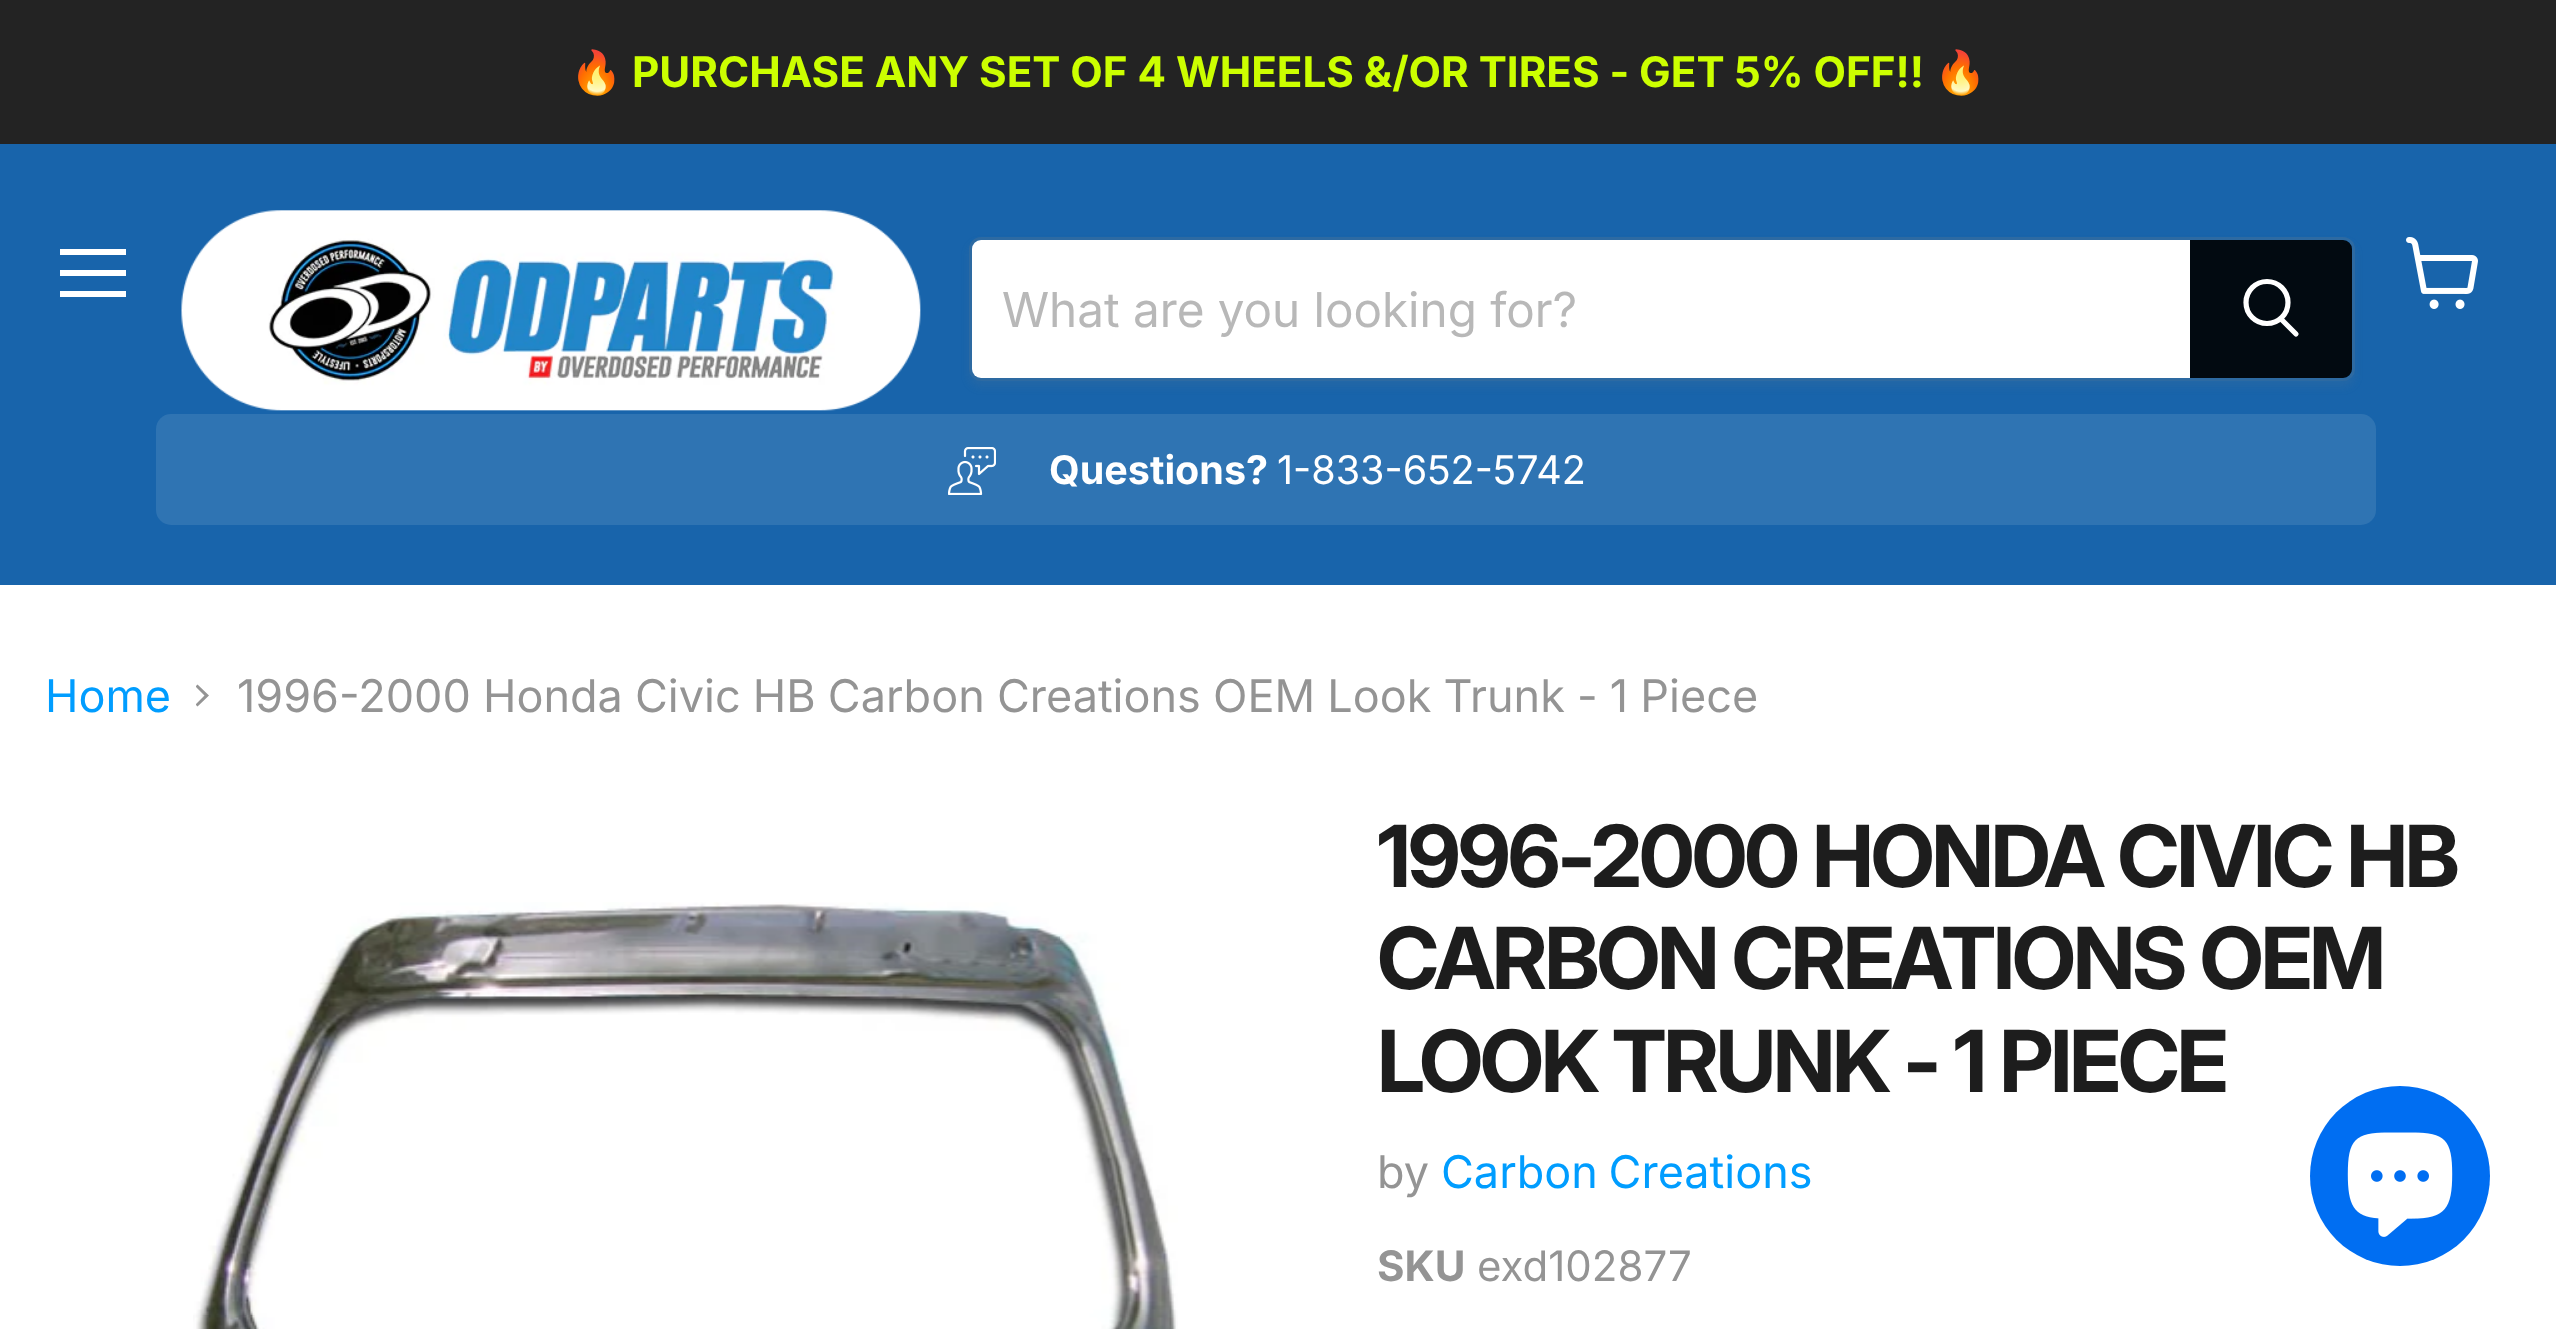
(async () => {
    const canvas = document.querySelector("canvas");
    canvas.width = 2556;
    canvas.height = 1329;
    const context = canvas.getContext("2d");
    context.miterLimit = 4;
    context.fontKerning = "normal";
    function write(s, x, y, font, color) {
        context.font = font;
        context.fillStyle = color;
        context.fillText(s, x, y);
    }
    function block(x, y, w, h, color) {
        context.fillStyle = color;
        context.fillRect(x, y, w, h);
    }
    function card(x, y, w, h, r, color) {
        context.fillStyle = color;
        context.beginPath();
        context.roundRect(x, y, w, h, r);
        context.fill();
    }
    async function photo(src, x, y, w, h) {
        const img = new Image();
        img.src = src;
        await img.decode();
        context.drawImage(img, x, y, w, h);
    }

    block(0, 0, 2556, 1329, "rgb(255, 255, 255)");
    block(0, 0, 2556, 144, "rgb(35, 35, 35)");
    write("🔥", 570, 87, "bold 42.2px Noto Color Emoji", "rgb(204, 255, 0)");
    context.wordSpacing = "-0.1px";
    write("PURCHASE ANY SET OF 4 WHEELS &/OR TIRES - GET 5% OFF!!", 632, 87, "bold 42.2px 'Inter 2'", "rgb(204, 255, 0)");
    context.wordSpacing = "0px";
    write("🔥", 1934, 87, "bold 42.2px Noto Color Emoji", "rgb(204, 255, 0)");
    block(0, 144, 2556, 441, "rgb(24, 100, 171)");
    block(60, 249, 66, 6, "rgb(255, 255, 255)");
    block(60, 270, 66, 6, "rgb(255, 255, 255)");
    block(60, 291, 66, 6, "rgb(255, 255, 255)");
    await photo("media/1.png", 2406, 237, 72, 72);
    await photo("media/2.png", 181, 210, 740, 201);
    context.save();
    context.beginPath();
    context.moveTo(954, 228);
    context.lineTo(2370, 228);
    context.lineTo(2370, 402);
    context.lineTo(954, 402);
    context.closePath();
    context.moveTo(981, 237);
    context.lineTo(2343, 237);
    context.bezierCurveTo(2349.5, 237, 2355, 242.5, 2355, 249);
    context.lineTo(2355, 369);
    context.bezierCurveTo(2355, 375.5, 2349.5, 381, 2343, 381);
    context.lineTo(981, 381);
    context.bezierCurveTo(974.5, 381, 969, 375.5, 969, 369);
    context.lineTo(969, 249);
    context.bezierCurveTo(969, 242.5, 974.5, 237, 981, 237);
    context.closePath();
    context.clip("evenodd");
    context.fillStyle = "rgba(128, 128, 128, 0.11)";
    context.filter = "blur(4.5px)";
    context.beginPath();
    context.roundRect(969, 243, 1386, 144, 12);
    context.fill();
    context.filter = "none";
    context.restore();
    context.beginPath();
    context.roundRect(970.5, 238.5, 1383, 141, 10.5);
    context.strokeStyle = "rgba(128, 128, 128, 0.2)";
    context.lineWidth = 3;
    context.stroke();
    context.beginPath();
    context.roundRect(972, 240, 1218, 138, [9, 0, 0, 9]);
    context.fill();
    write("What are you looking for?", 1002, 327, "48px 'Inter 2'", "rgb(184, 184, 184)");
    context.fillStyle = "rgb(2, 10, 17)";
    context.beginPath();
    context.roundRect(2191.5, 241.5, 159, 135, [0, 7.5, 7.5, 0]);
    context.fill();
    context.strokeStyle = "rgb(2, 10, 17)";
    context.stroke();
    context.beginPath();
    context.moveTo(2296, 334);
    context.lineTo(2281.5, 319.5);
    context.strokeStyle = "rgb(255, 255, 255)";
    context.lineWidth = 5.2;
    context.lineCap = "round";
    context.stroke();
    context.beginPath();
    context.arc(2267, 302.5, 21, 0, Math.PI * 2);
    context.stroke();
    card(156, 414, 2220, 111, 15, "rgb(47, 116, 179)");
    await photo("media/3.png", 948, 447, 48, 48);
    write("Questions?", 1049, 484, "bold 39.5px 'Inter 2'", "rgb(255, 255, 255)");
    write("1-833-652-5742", 1277, 484, "39.5px Inter", "rgb(255, 255, 255)");
    write("Home", 45, 712, "45px Inter", "rgb(0, 157, 255)");
    context.fillStyle = "rgb(148, 148, 148)";
    context.beginPath();
    context.moveTo(196, 687);
    context.lineTo(196, 686);
    context.lineTo(197.5, 684.5);
    context.lineTo(209, 695.5);
    context.lineTo(197.5, 706.5);
    context.lineTo(196, 705);
    context.lineTo(196, 704);
    context.lineTo(204.5, 695.5);
    context.closePath();
    context.fill();
    context.wordSpacing = "-0.5px";
    write("1996-2000 Honda Civic HB Carbon Creations OEM Look Trunk - 1 Piece", 237, 712, "45px Inter", "rgb(148, 148, 148)");
    await photo("media/4.png", 193, 902, 985, 427);
    context.letterSpacing = "-3.4px";
    context.wordSpacing = "0px";
    write("1996-2000 HONDA CIVIC HB", 1377, 887, "bold 85.5px Inter", "rgb(29, 29, 29)");
    write("CARBON CREATIONS OEM", 1377, 989, "bold 85.5px Inter", "rgb(29, 29, 29)");
    write("LOOK TRUNK - 1 PIECE", 1377, 1092, "bold 85.5px Inter", "rgb(29, 29, 29)");
    context.letterSpacing = "0px";
    write("by", 1377, 1188, "45px Inter", "rgb(148, 148, 148)");
    context.wordSpacing = "-2px";
    write("Carbon Creations", 1441, 1188, "45px Inter", "rgb(0, 157, 255)");
    context.wordSpacing = "0px";
    write("SKU", 1377, 1281, "bold 42px 'Inter 2'", "rgb(148, 148, 148)");
    write("exd102877", 1477, 1281, "42px Inter", "rgb(148, 148, 148)");
    context.fillStyle = "rgb(0, 110, 242)";
    context.beginPath();
    context.arc(2400, 1176, 90, 0, Math.PI * 2);
    context.fill();
    await photo("media/5.png", 2347, 1132, 106, 105);
})();
